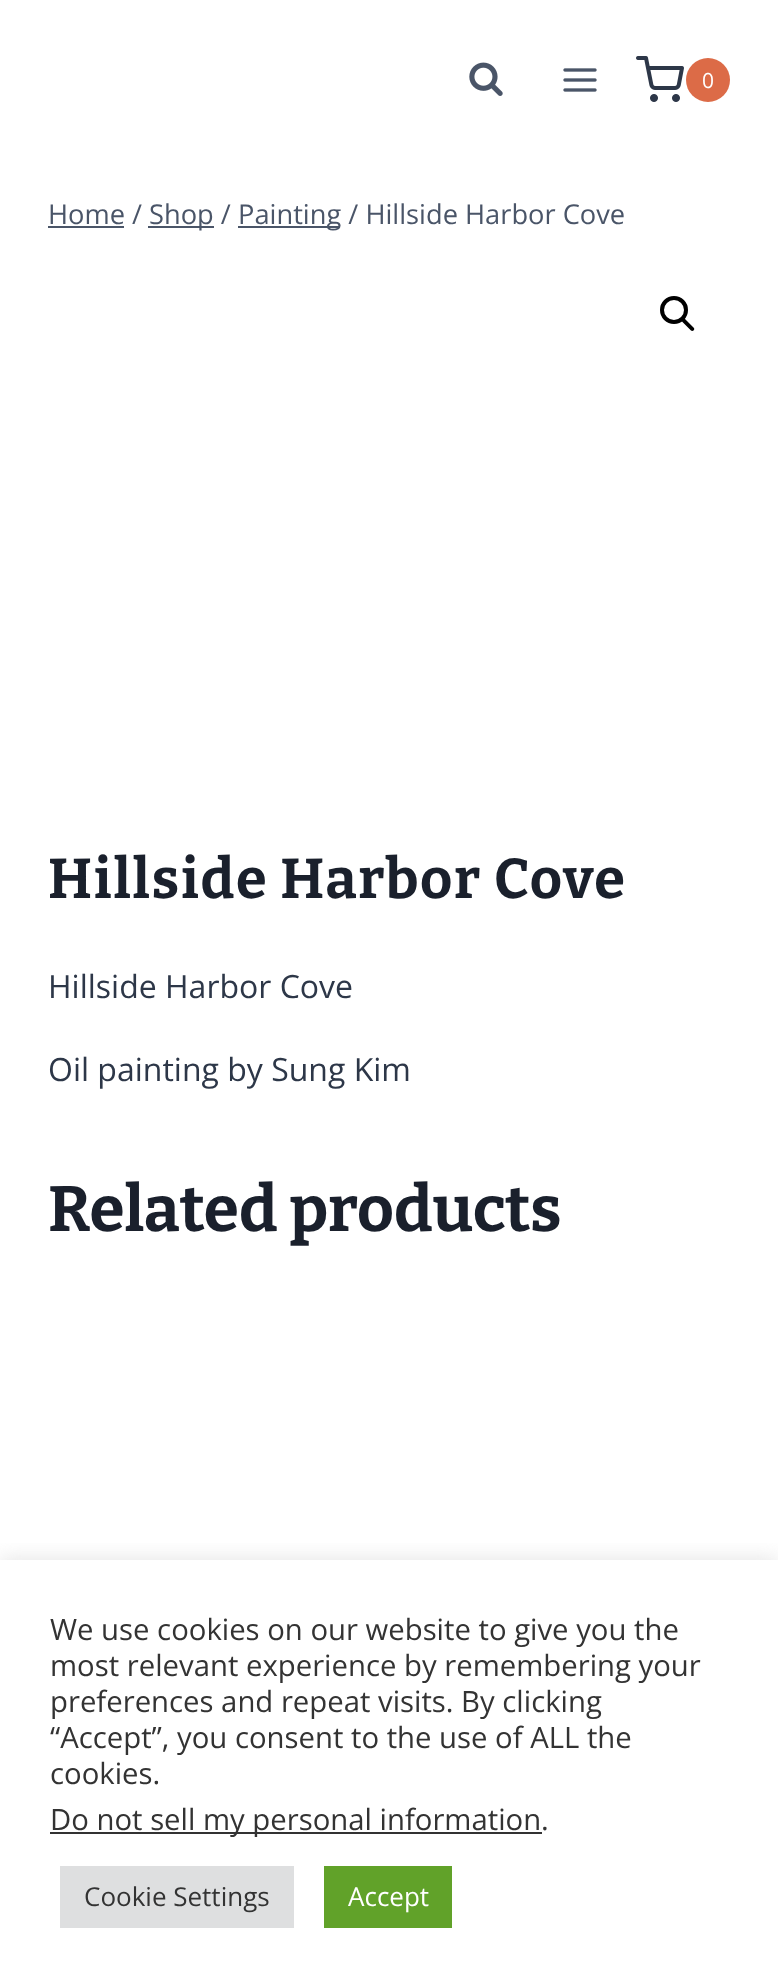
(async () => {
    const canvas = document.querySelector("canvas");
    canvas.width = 778;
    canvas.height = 1987;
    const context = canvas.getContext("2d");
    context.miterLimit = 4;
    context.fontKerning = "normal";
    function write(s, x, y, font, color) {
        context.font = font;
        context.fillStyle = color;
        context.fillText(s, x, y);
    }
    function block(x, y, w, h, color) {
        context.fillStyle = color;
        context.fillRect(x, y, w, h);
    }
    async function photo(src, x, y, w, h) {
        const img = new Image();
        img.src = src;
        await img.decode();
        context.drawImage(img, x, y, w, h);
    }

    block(0, 0, 778, 1987, "rgb(255, 255, 255)");
    await photo("media/1.png", 469, 62, 34, 34);
    await photo("media/2.png", 563, 68, 34, 24);
    await photo("media/3.png", 636, 56, 48, 46);
    context.fillStyle = "rgb(220, 107, 71)";
    context.beginPath();
    context.arc(708, 80, 22, 0, Math.PI * 2);
    context.fill();
    write("0", 702, 88, "21px Open Sans", "rgb(255, 255, 255)");
    write("Home /", 48, 224, "27.25px Open Sans", "rgb(74, 85, 104)");
    block(48, 226, 76, 2, "rgb(74, 85, 104)");
    block(148, 226, 66, 2, "rgb(74, 85, 104)");
    write("Shop /", 149, 224, "27.25px Open Sans", "rgb(74, 85, 104)");
    block(238, 226, 102, 2, "rgb(74, 85, 104)");
    write("Painting / Hillside Harbor Cove", 238, 224, "27.25px Open Sans", "rgb(74, 85, 104)");
    context.beginPath();
    context.arc(674, 310, 12, 0, Math.PI * 2);
    context.strokeStyle = "rgb(0, 0, 0)";
    context.lineWidth = 4;
    context.stroke();
    context.fillStyle = "rgb(0, 0, 0)";
    context.beginPath();
    context.moveTo(682.5, 319);
    context.bezierCurveTo(683, 318, 684.5, 318, 685, 319);
    context.lineTo(693.5, 327.5);
    context.bezierCurveTo(694.5, 328.5, 694.5, 329.5, 693.5, 330.5);
    context.bezierCurveTo(693, 331, 691.5, 331, 691, 330.5);
    context.lineTo(682.5, 322);
    context.bezierCurveTo(681.5, 321, 681.5, 320, 682.5, 319);
    context.closePath();
    context.fill();
    context.letterSpacing = "1.7px";
    write("Hillside Harbor Cove", 48, 898, "bold 56px Bitter", "rgb(26, 32, 44)");
    context.letterSpacing = "0px";
    write("Hillside Harbor Cove", 48, 998, "32px Open Sans", "rgb(45, 55, 72)");
    write("Oil painting by Sung Kim", 48, 1081, "32px Open Sans", "rgb(45, 55, 72)");
    write("Related products", 48, 1231, "bold 64px Bitter", "rgb(26, 32, 44)");
    context.save();
    context.beginPath();
    context.rect(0, 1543, 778, 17);
    context.clip();
    context.fillStyle = "rgba(172, 171, 171, 0.3)";
    context.filter = "blur(10px)";
    context.beginPath();
    context.rect(0, 1558, 778, 428);
    context.fill();
    context.filter = "none";
    context.restore();
    write("We use cookies on our website to give you the", 50, 1640, "29.3px Open Sans", "rgb(51, 51, 51)");
    write("most relevant experience by remembering your", 50, 1676, "29.3px Open Sans", "rgb(51, 51, 51)");
    write("preferences and repeat visits. By clicking", 50, 1712, "29.3px Open Sans", "rgb(51, 51, 51)");
    write("“Accept”, you consent to the use of ALL the", 50, 1748, "29.3px Open Sans", "rgb(51, 51, 51)");
    write("cookies.", 50, 1784, "29.3px Open Sans", "rgb(51, 51, 51)");
    block(50, 1832, 492, 2, "rgb(51, 51, 51)");
    write("Do not sell my personal information", 50, 1830, "29.3px Open Sans", "rgb(51, 51, 51)");
    write(".", 541, 1830, "29.3px Open Sans", "rgb(51, 51, 51)");
    block(60, 1866, 234, 62, "rgb(222, 223, 224)");
    write("Cookie Settings", 84, 1906, "26px Open Sans", "rgb(51, 51, 51)");
    block(324, 1866, 128, 62, "rgb(97, 162, 41)");
    write("Accept", 348, 1906, "26px Open Sans", "rgb(255, 255, 255)");
})();
